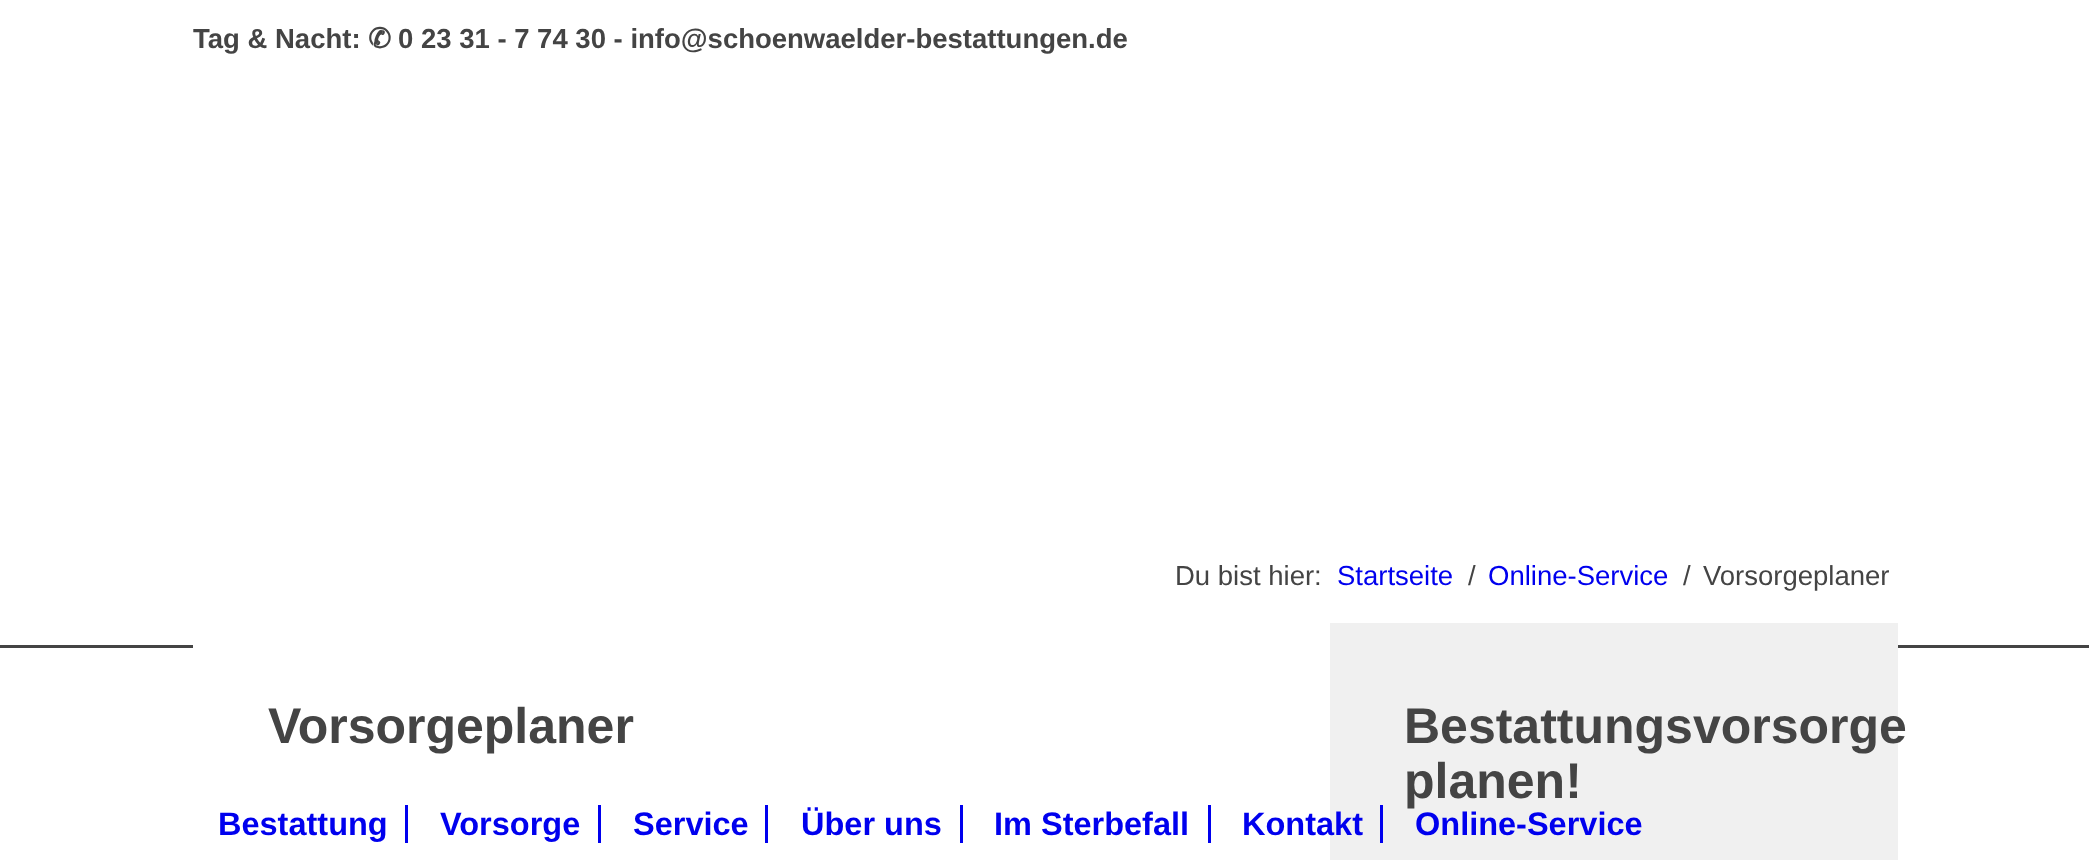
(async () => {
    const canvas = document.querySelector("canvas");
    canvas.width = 2089;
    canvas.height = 860;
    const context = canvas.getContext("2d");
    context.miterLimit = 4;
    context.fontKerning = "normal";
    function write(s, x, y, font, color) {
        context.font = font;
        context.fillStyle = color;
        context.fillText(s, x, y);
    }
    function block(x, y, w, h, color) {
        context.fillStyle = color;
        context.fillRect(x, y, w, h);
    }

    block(0, 0, 2089, 860, "rgb(255, 255, 255)");
    write("Tag & Nacht:", 193, 48, "bold 27.5px Liberation Sans", "rgb(68, 68, 68)");
    write("✆", 368, 48, "bold 27.5px DejaVu Sans", "rgb(68, 68, 68)");
    write("0 23 31 - 7 74 30 - info@schoenwaelder-bestattungen.de", 398, 48, "bold 27.5px Liberation Sans", "rgb(68, 68, 68)");
    write("Bestattung", 218, 835, "bold 32.5px Liberation Sans", "rgb(0, 0, 238)");
    write("Vorsorge", 440, 835, "bold 32.5px Liberation Sans", "rgb(0, 0, 238)");
    block(405, 805, 3, 38, "rgb(0, 0, 238)");
    write("Service", 633, 835, "bold 32.5px Liberation Sans", "rgb(0, 0, 238)");
    block(598, 805, 3, 38, "rgb(0, 0, 238)");
    write("Über uns", 801, 835, "bold 32.5px Liberation Sans", "rgb(0, 0, 238)");
    block(765, 805, 3, 38, "rgb(0, 0, 238)");
    write("Im Sterbefall", 994, 835, "bold 32.5px Liberation Sans", "rgb(0, 0, 238)");
    block(960, 805, 3, 38, "rgb(0, 0, 238)");
    block(0, 645, 2089, 3, "rgb(68, 68, 68)");
    block(1330, 623, 568, 237, "rgb(240, 240, 240)");
    write("Kontakt", 1242, 835, "bold 32.5px Liberation Sans", "rgb(0, 0, 238)");
    block(1208, 805, 3, 38, "rgb(0, 0, 238)");
    write("Online-Service", 1415, 835, "bold 32.5px Liberation Sans", "rgb(0, 0, 238)");
    block(1380, 805, 3, 38, "rgb(0, 0, 238)");
    write("Du bist hier:", 1175, 585, "27.5px Liberation Sans", "rgb(68, 68, 68)");
    write("Startseite", 1337, 585, "27.5px Liberation Sans", "rgb(0, 0, 238)");
    write("/", 1468, 585, "27.5px Liberation Sans", "rgb(68, 68, 68)");
    write("Online-Service", 1488, 585, "27.5px Liberation Sans", "rgb(0, 0, 238)");
    write("/", 1683, 585, "27.5px Liberation Sans", "rgb(68, 68, 68)");
    write("Vorsorgeplaner", 1703, 585, "27.5px Liberation Sans", "rgb(68, 68, 68)");
    block(193, 645, 1137, 3, "rgb(255, 255, 255)");
    write("Vorsorgeplaner", 268, 743, "bold 50px Liberation Sans", "rgb(68, 68, 68)");
    write("Bestattungsvorsorge", 1404, 743, "bold 50px Liberation Sans", "rgb(68, 68, 68)");
    write("planen!", 1404, 798, "bold 50px Liberation Sans", "rgb(68, 68, 68)");
})();
